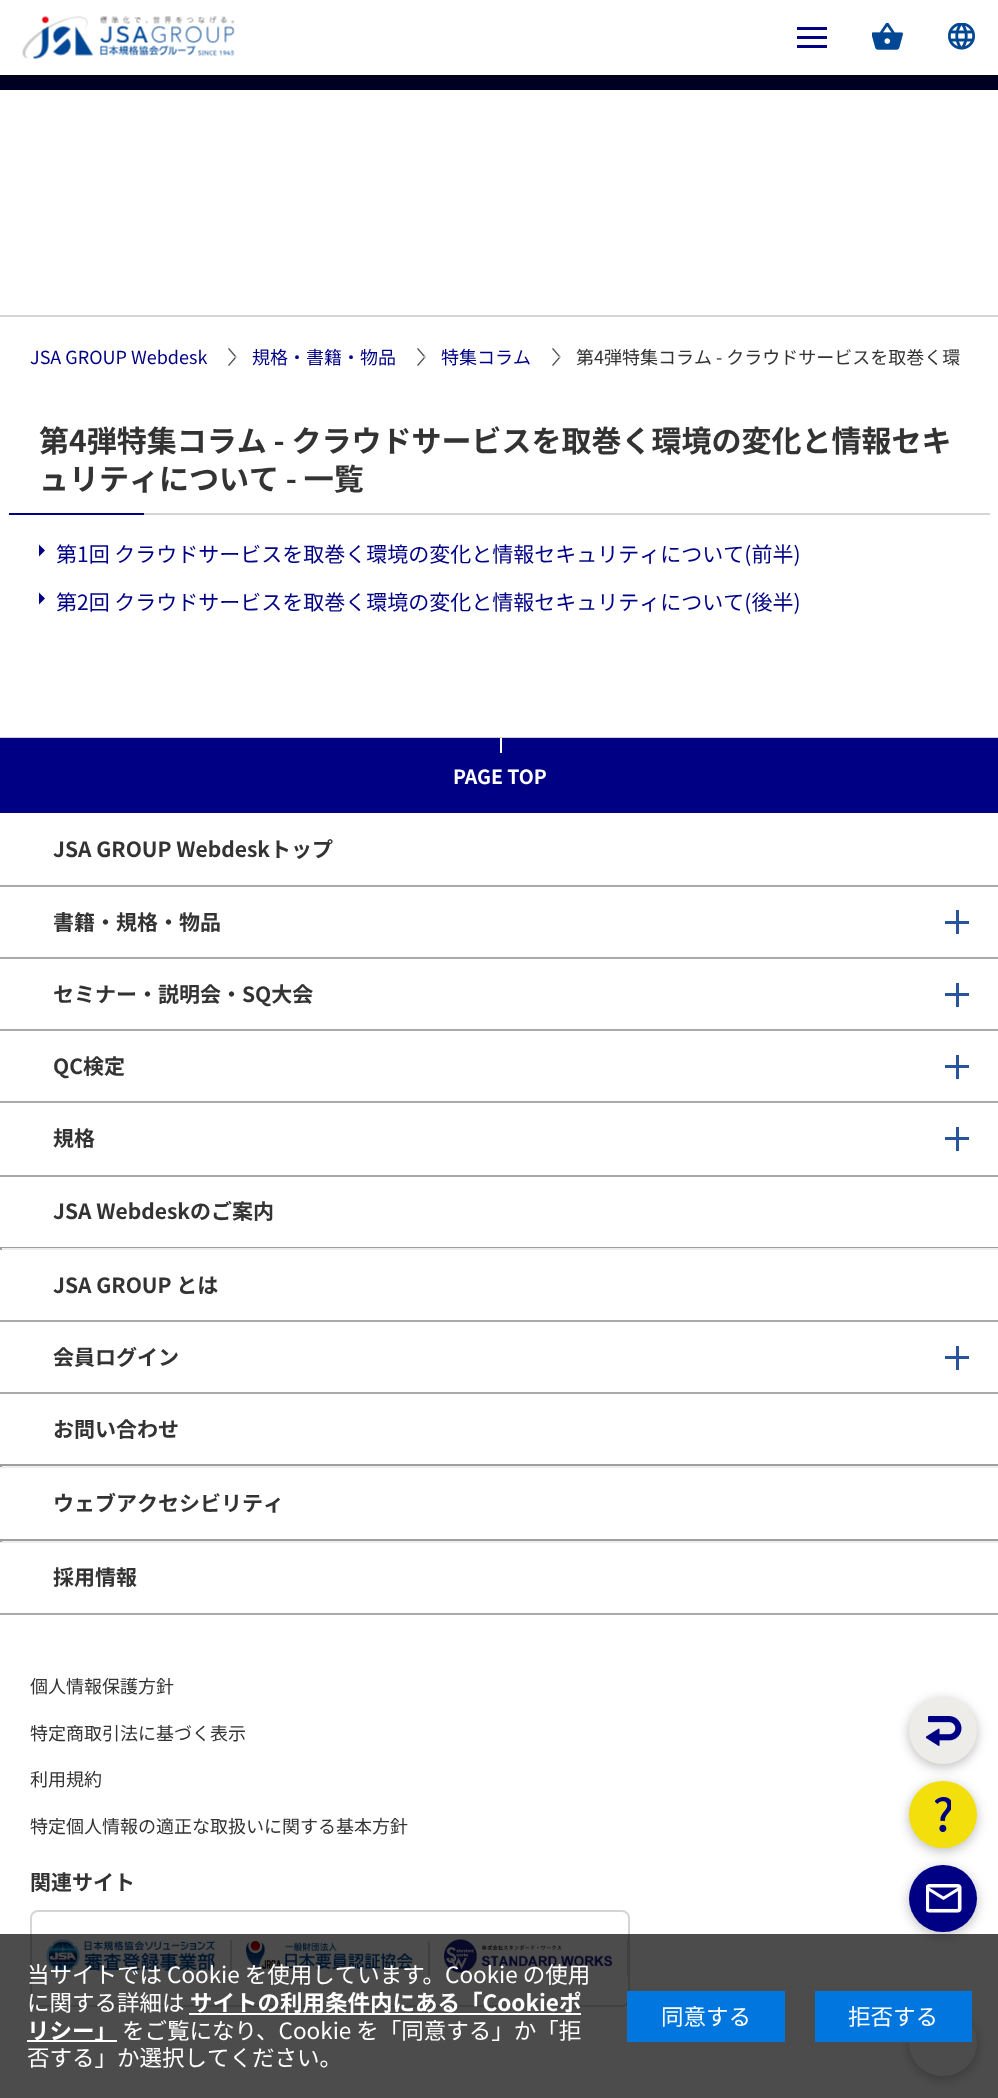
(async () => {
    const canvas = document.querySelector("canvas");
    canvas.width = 998;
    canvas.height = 2098;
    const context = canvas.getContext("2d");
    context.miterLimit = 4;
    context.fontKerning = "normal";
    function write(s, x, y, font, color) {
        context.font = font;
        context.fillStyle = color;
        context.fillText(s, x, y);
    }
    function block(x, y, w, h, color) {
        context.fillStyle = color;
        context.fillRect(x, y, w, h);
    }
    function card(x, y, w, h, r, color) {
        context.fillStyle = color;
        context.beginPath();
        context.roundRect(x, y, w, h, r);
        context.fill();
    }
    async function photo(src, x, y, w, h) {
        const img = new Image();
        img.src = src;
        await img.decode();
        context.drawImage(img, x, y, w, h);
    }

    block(0, 0, 998, 2098, "rgb(255, 255, 255)");
    block(0, 75, 998, 15, "rgb(0, 0, 37)");
    context.fillStyle = "rgba(0, 0, 0, 0.26)";
    context.filter = "blur(6px)";
    context.beginPath();
    context.rect(0, 3, 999, 75);
    context.fill();
    context.filter = "none";
    block(0, 0, 998, 75, "rgb(255, 255, 255)");
    await photo("media/1.png", 22, 16, 213, 43);
    block(797, 27, 30, 3, "rgb(0, 0, 133)");
    block(797, 36, 30, 3, "rgb(0, 0, 133)");
    block(797, 45, 30, 3, "rgb(0, 0, 133)");
    await photo("media/2.png", 872, 23, 31, 27);
    await photo("media/3.png", 872, 23, 31, 27);
    await photo("media/4.png", 948, 23, 27, 27);
    await photo("media/5.png", 948, 23, 27, 27);
    block(0, 315, 998, 2, "rgb(213, 213, 213)");
    await photo("media/6.png", 228, 348, 9, 18);
    write("JSA GROUP Webdesk", 30, 364, "18px Noto Sans JP", "rgb(0, 0, 133)");
    await photo("media/6.png", 417, 348, 9, 18);
    write("規格・書籍・物品", 252, 364, "18px Noto Sans JP", "rgb(0, 0, 133)");
    await photo("media/6.png", 552, 348, 9, 18);
    write("特集コラム", 441, 364, "18px Noto Sans JP", "rgb(0, 0, 133)");
    write("第4弾特集コラム - クラウドサービスを取巻く環", 576, 364, "18px Noto Sans JP", "rgb(51, 51, 51)");
    block(144, 513, 846, 2, "rgb(213, 213, 213)");
    write("第4弾特集コラム - クラウドサービスを取巻く環境の変化と情報セキ", 39, 452, "bold 30px Noto Sans JP", "rgb(51, 51, 51)");
    write("ュリティについて - 一覧", 39, 490, "bold 30px Noto Sans JP", "rgb(51, 51, 51)");
    block(9, 513, 135, 2, "rgb(0, 0, 133)");
    context.beginPath();
    context.moveTo(39, 556.5);
    context.lineTo(39, 544.5);
    context.lineTo(45, 550.5);
    context.closePath();
    context.fill();
    write("第1回 クラウドサービスを取巻く環境の変化と情報セキュリティについて(前半)", 56, 562, "21px Noto Sans JP", "rgb(0, 0, 133)");
    context.beginPath();
    context.moveTo(39, 604.5);
    context.lineTo(39, 592.5);
    context.lineTo(45, 598.5);
    context.closePath();
    context.fill();
    write("第2回 クラウドサービスを取巻く環境の変化と情報セキュリティについて(後半)", 56, 610, "21px Noto Sans JP", "rgb(0, 0, 133)");
    block(0, 737, 998, 1, "rgb(204, 204, 204)");
    block(0, 738, 998, 75, "rgb(0, 0, 133)");
    block(500, 738, 2, 15, "rgb(255, 255, 255)");
    write("PAGE TOP", 453, 784, "bold 19.5px Noto Sans JP", "rgb(255, 255, 255)");
    block(0, 885, 998, 2, "rgb(170, 170, 170)");
    write("JSA GROUP Webdeskトップ", 53, 857, "bold 21px Noto Sans JP", "rgb(51, 51, 51)");
    block(0, 957, 998, 2, "rgb(170, 170, 170)");
    write("書籍・規格・物品", 53, 930, "bold 21px Noto Sans JP", "rgb(51, 51, 51)");
    block(956, 910, 3, 24, "rgb(41, 83, 155)");
    block(945, 921, 24, 3, "rgb(41, 83, 155)");
    block(0, 1029, 998, 2, "rgb(170, 170, 170)");
    write("セミナー・説明会・SQ大会", 53, 1002, "bold 21px Noto Sans JP", "rgb(51, 51, 51)");
    block(956, 983, 3, 24, "rgb(41, 83, 155)");
    block(945, 993, 24, 3, "rgb(41, 83, 155)");
    block(0, 1101, 998, 2, "rgb(170, 170, 170)");
    write("QC検定", 53, 1074, "bold 21px Noto Sans JP", "rgb(51, 51, 51)");
    block(956, 1055, 3, 24, "rgb(41, 83, 155)");
    block(945, 1065, 24, 3, "rgb(41, 83, 155)");
    block(0, 1175, 998, 2, "rgb(170, 170, 170)");
    write("規格", 53, 1146, "bold 21px Noto Sans JP", "rgb(51, 51, 51)");
    block(956, 1127, 3, 24, "rgb(41, 83, 155)");
    block(945, 1137, 24, 3, "rgb(41, 83, 155)");
    block(0, 1320, 998, 2, "rgb(170, 170, 170)");
    write("JSA Webdeskのご案内", 53, 1219, "bold 21px Noto Sans JP", "rgb(51, 51, 51)");
    block(0, 1247, 998, 1, "rgb(159, 159, 159)");
    block(0, 1248, 998, 2, "rgb(238, 238, 238)");
    block(0, 1247, 2, 3, "rgb(159, 159, 159)");
    write("JSA GROUP とは", 53, 1293, "bold 21px Noto Sans JP", "rgb(51, 51, 51)");
    block(0, 1392, 998, 2, "rgb(170, 170, 170)");
    write("会員ログイン", 53, 1365, "bold 21px Noto Sans JP", "rgb(51, 51, 51)");
    block(956, 1346, 3, 24, "rgb(41, 83, 155)");
    block(945, 1356, 24, 3, "rgb(41, 83, 155)");
    block(0, 1613, 998, 2, "rgb(170, 170, 170)");
    write("お問い合わせ", 53, 1437, "bold 21px Noto Sans JP", "rgb(51, 51, 51)");
    block(0, 1464, 998, 2, "rgb(159, 159, 159)");
    block(0, 1466, 998, 2, "rgb(238, 238, 238)");
    block(0, 1464, 2, 3, "rgb(159, 159, 159)");
    write("ウェブアクセシビリティ", 53, 1511, "bold 21px Noto Sans JP", "rgb(51, 51, 51)");
    block(0, 1539, 998, 2, "rgb(159, 159, 159)");
    block(0, 1541, 998, 2, "rgb(238, 238, 238)");
    block(0, 1539, 2, 3, "rgb(159, 159, 159)");
    write("採用情報", 53, 1585, "bold 21px Noto Sans JP", "rgb(51, 51, 51)");
    write("個人情報保護方針", 30, 1693, "18px Noto Sans JP", "rgb(51, 51, 51)");
    write("特定商取引法に基づく表示", 30, 1740, "18px Noto Sans JP", "rgb(51, 51, 51)");
    write("利用規約", 30, 1786, "18px Noto Sans JP", "rgb(51, 51, 51)");
    write("特定個人情報の適正な取扱いに関する基本方針", 30, 1833, "18px Noto Sans JP", "rgb(51, 51, 51)");
    write("関連サイト", 30, 1890, "bold 21px Noto Sans JP", "rgb(51, 51, 51)");
    context.beginPath();
    context.roundRect(31, 1911, 598, 95, 7);
    context.strokeStyle = "rgb(213, 213, 213)";
    context.lineWidth = 2;
    context.stroke();
    block(230, 1940, 2, 37, "rgb(213, 213, 213)");
    await photo("media/7.png", 46, 1939, 169, 34);
    block(428, 1941, 2, 35, "rgb(213, 213, 213)");
    await photo("media/8.png", 246, 1941, 167, 30);
    block(627, 1940, 1, 37, "rgb(213, 213, 213)");
    await photo("media/9.png", 444, 1939, 168, 34);
    context.fillStyle = "rgba(0, 0, 0, 0.26)";
    context.filter = "blur(6px)";
    context.beginPath();
    context.roundRect(909, 1700, 68, 67, 33.5);
    context.fill();
    context.filter = "none";
    card(909, 1697, 68, 67, 33.5, "rgb(238, 236, 233)");
    await photo("media/10.png", 926, 1716, 36, 30);
    context.fillStyle = "rgba(0, 0, 0, 0.26)";
    context.filter = "blur(6px)";
    context.beginPath();
    context.roundRect(909, 1784, 68, 67, 33.5);
    context.fill();
    context.filter = "none";
    card(909, 1781, 68, 67, 33.5, "rgb(242, 223, 12)");
    await photo("media/11.png", 935, 1797, 16, 35);
    context.fillStyle = "rgba(0, 0, 0, 0.26)";
    context.filter = "blur(6px)";
    context.beginPath();
    context.roundRect(909, 1868, 68, 67, 33.5);
    context.fill();
    context.filter = "none";
    card(909, 1865, 68, 67, 33.5, "rgb(0, 0, 133)");
    await photo("media/12.png", 926, 1884, 36, 29);
    context.fillStyle = "rgba(0, 0, 0, 0.26)";
    context.filter = "blur(6px)";
    context.beginPath();
    context.roundRect(909, 2012, 68, 67, 33.5);
    context.fill();
    context.filter = "none";
    card(909, 2009, 68, 67, 33.5, "rgb(255, 255, 255)");
    block(0, 1934, 998, 164, "rgba(0, 0, 0, 0.7)");
    write("当サイトでは Cookie を使用しています。Cookie の使用", 27, 1983, "22.5px Noto Sans JP", "rgb(255, 255, 255)");
    write("に関する詳細は", 27, 2011, "22.5px Noto Sans JP", "rgb(255, 255, 255)");
    block(189, 2013, 392, 2, "rgb(255, 255, 255)");
    write("サイトの利用条件内にある「Cookieポ", 190, 2011, "bold 22.5px Noto Sans JP", "rgb(255, 255, 255)");
    block(27, 2040, 90, 2, "rgb(255, 255, 255)");
    write("リシー」", 27, 2039, "bold 22.5px Noto Sans JP", "rgb(255, 255, 255)");
    write("をご覧になり、Cookie を「同意する」か「拒", 122, 2039, "22.5px Noto Sans JP", "rgb(255, 255, 255)");
    write("否する」か選択してください。", 27, 2066, "22.5px Noto Sans JP", "rgb(255, 255, 255)");
    block(627, 1991, 158, 51, "rgb(0, 118, 222)");
    write("同意する", 661, 2025, "22.5px Noto Sans JP", "rgb(255, 255, 255)");
    block(815, 1991, 157, 51, "rgb(0, 118, 222)");
    write("拒否する", 848, 2025, "22.5px Noto Sans JP", "rgb(255, 255, 255)");
})();
